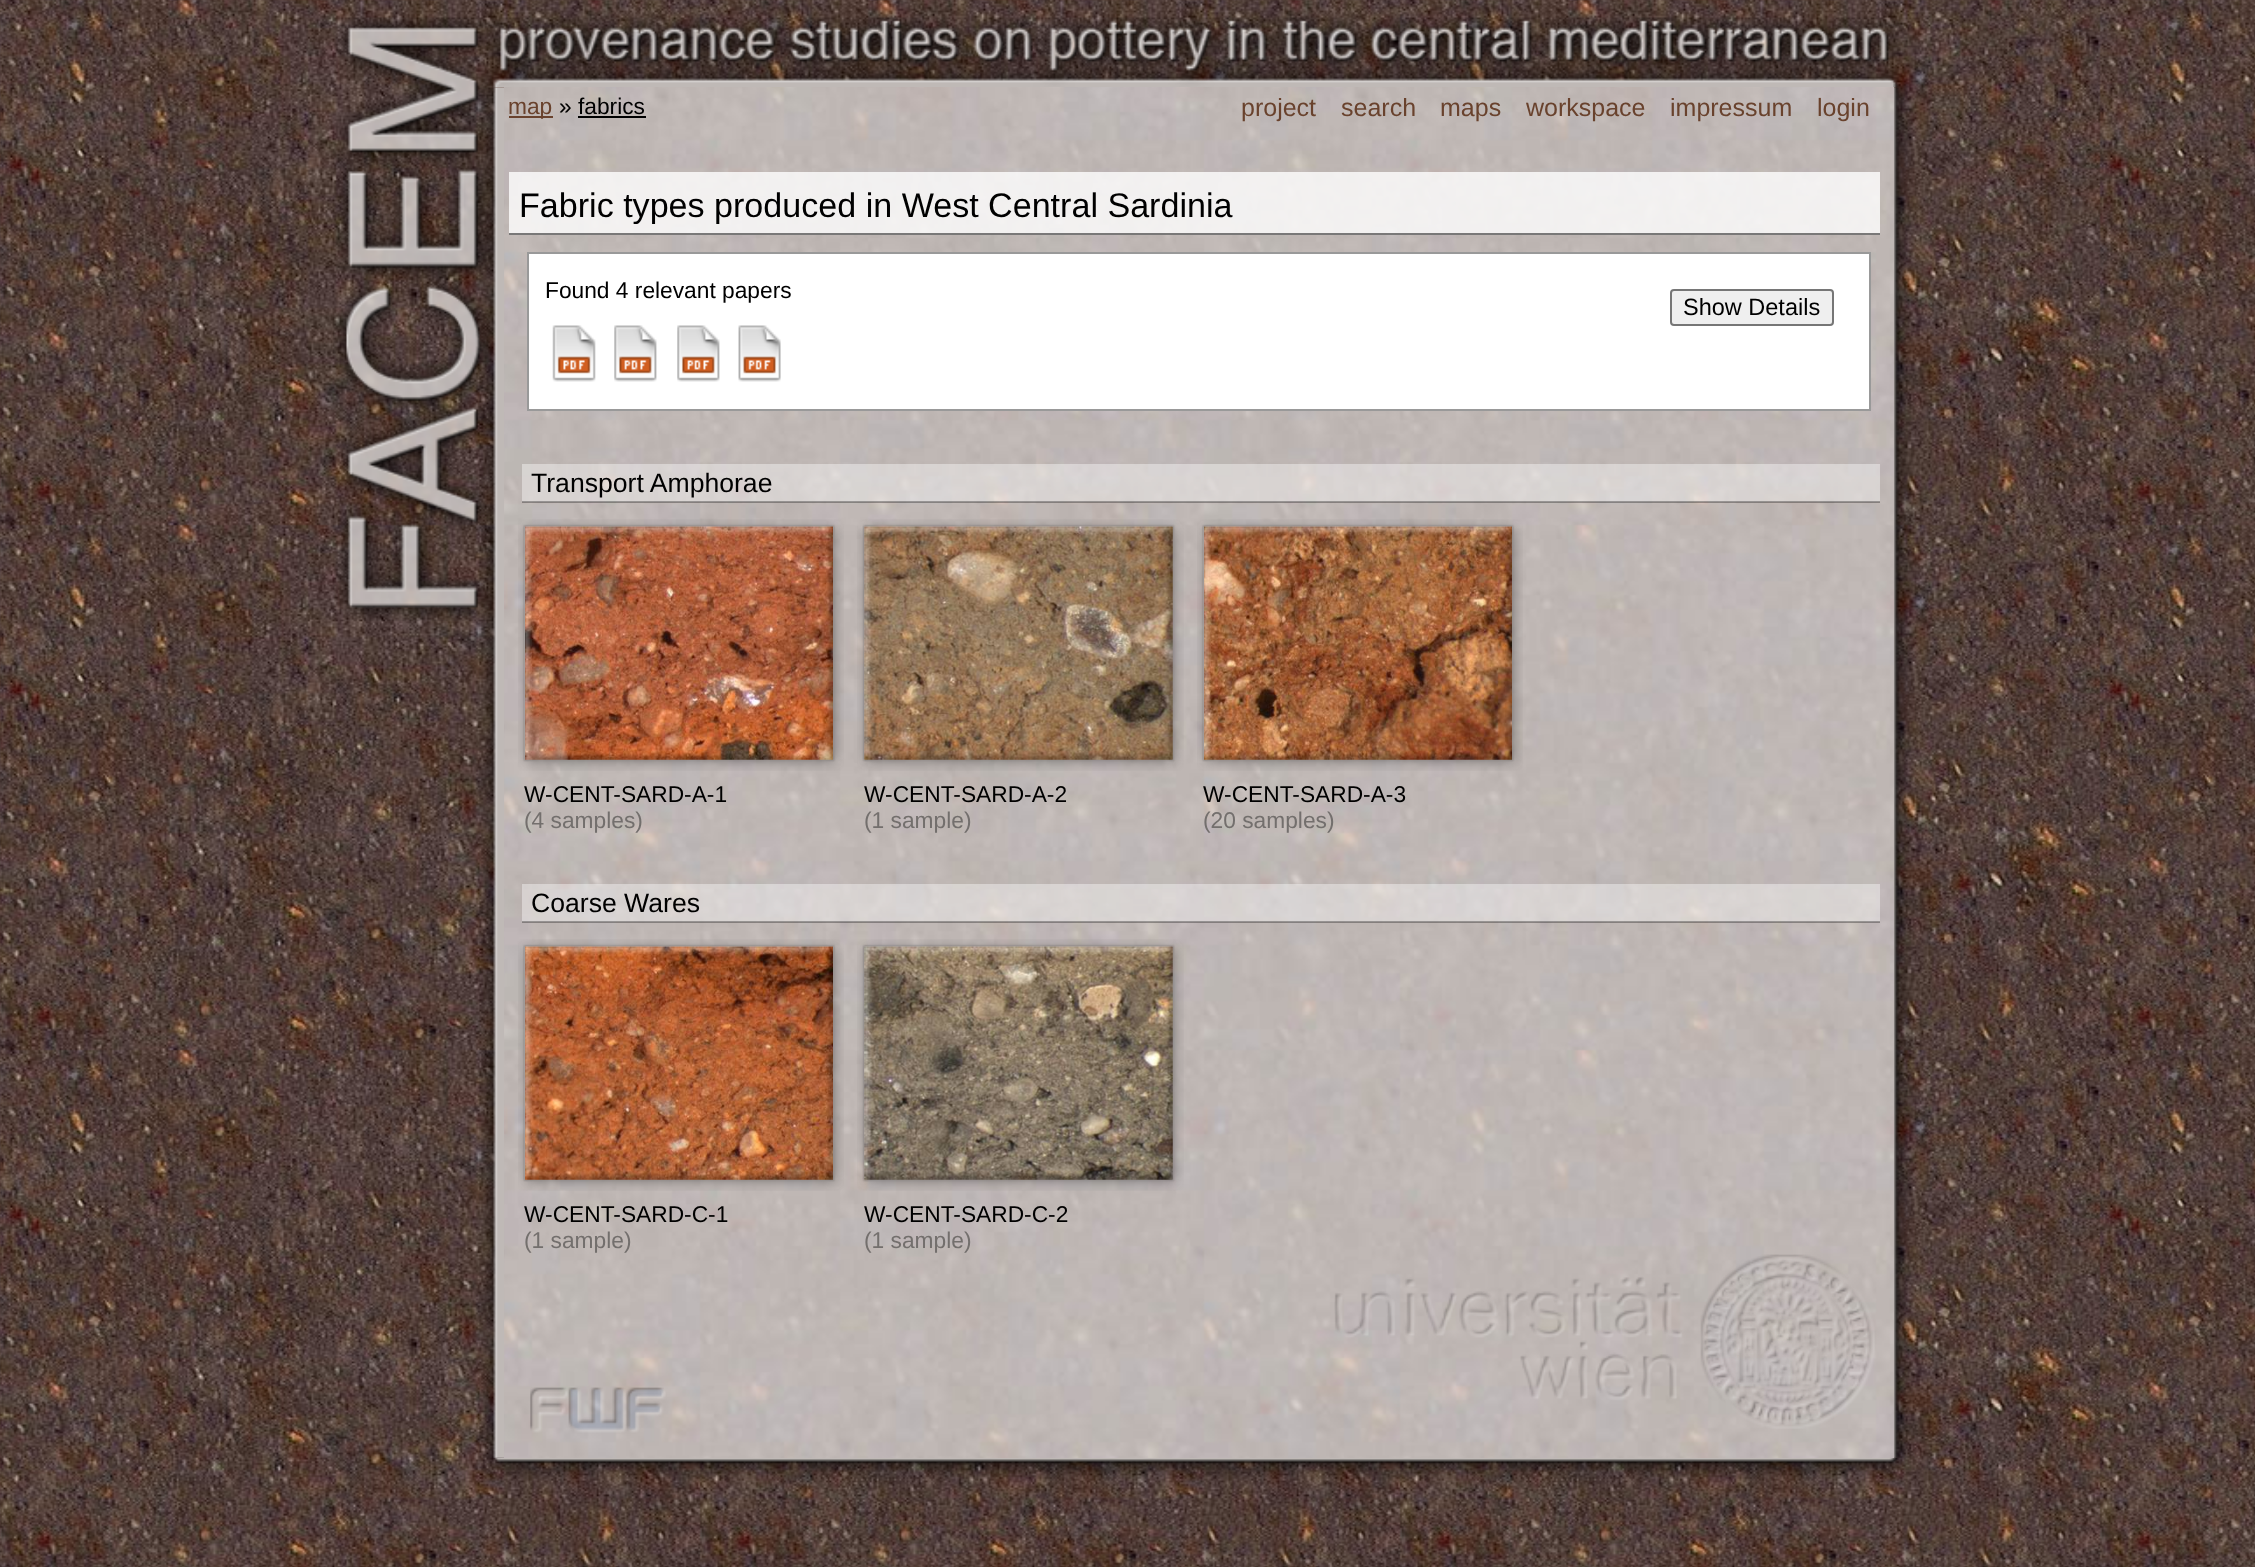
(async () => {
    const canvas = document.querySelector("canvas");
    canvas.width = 2255;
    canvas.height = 1567;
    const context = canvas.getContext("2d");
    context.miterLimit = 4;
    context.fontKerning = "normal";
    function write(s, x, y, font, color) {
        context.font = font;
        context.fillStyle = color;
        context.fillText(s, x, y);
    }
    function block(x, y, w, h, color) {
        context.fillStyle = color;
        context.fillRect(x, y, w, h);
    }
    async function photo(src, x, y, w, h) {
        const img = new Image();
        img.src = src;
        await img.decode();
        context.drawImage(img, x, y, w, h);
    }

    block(0, 0, 2255, 1567, "rgb(255, 255, 255)");
    await photo("media/1.png", 0, 0, 2255, 1567);
    await photo("media/2.png", 333, 17, 1577, 604);
    await photo("media/3.png", 483, 1457, 1426, 22);
    await photo("media/4.png", 479, 87, 1435, 1371);
    await photo("media/5.png", 504, 87, 1390, 1371);
    block(509, 116, 44, 2, "rgb(105, 66, 45)");
    write("map", 508, 114, "22.75px Liberation Sans", "rgb(105, 66, 45)");
    write("» fabrics", 559, 114, "22.75px Liberation Sans", "rgb(0, 0, 0)");
    block(578, 116, 68, 2, "rgb(0, 0, 0)");
    write("project", 1241, 116, "25px Liberation Sans", "rgb(105, 66, 45)");
    write("search", 1341, 116, "25px Liberation Sans", "rgb(105, 66, 45)");
    write("maps", 1440, 116, "25px Liberation Sans", "rgb(105, 66, 45)");
    write("workspace", 1526, 116, "25px Liberation Sans", "rgb(105, 66, 45)");
    write("impressum", 1670, 116, "25px Liberation Sans", "rgb(105, 66, 45)");
    write("login", 1817, 116, "25px Liberation Sans", "rgb(105, 66, 45)");
    block(509, 172, 1371, 63, "rgba(255, 255, 255, 0.8)");
    block(509, 233, 1371, 2, "rgba(0, 0, 0, 0.5)");
    write("Fabric types produced in West Central Sardinia", 519, 217, "34.1px Liberation Sans", "rgb(0, 0, 0)");
    context.fillStyle = "rgb(255, 255, 255)";
    context.beginPath();
    context.rect(528, 253, 1342, 157);
    context.fill();
    context.strokeStyle = "rgb(153, 153, 153)";
    context.lineWidth = 2;
    context.stroke();
    write("Found 4 relevant papers", 545, 298, "22.75px Liberation Sans", "rgb(0, 0, 0)");
    context.fillStyle = "rgb(239, 239, 239)";
    context.beginPath();
    context.roundRect(1671, 290, 162, 35, 3);
    context.fill();
    context.strokeStyle = "rgb(118, 118, 118)";
    context.stroke();
    write("Show Details", 1683, 315, "23.5px Liberation Sans", "rgb(0, 0, 0)");
    await photo("media/6.png", 552, 325, 44, 57);
    await photo("media/7.png", 614, 325, 43, 57);
    await photo("media/7.png", 677, 325, 43, 57);
    await photo("media/8.png", 738, 325, 43, 57);
    block(522, 464, 1358, 38, "rgba(255, 255, 255, 0.4)");
    block(522, 501, 1358, 2, "rgba(0, 0, 0, 0.3)");
    write("Transport Amphorae", 531, 492, "26.6px Liberation Sans", "rgb(0, 0, 0)");
    await photo("media/9.png", 518, 519, 326, 252);
    await photo("media/10.png", 525, 526, 308, 234);
    write("W-CENT-SARD-A-1", 524, 802, "22.75px Liberation Sans", "rgb(0, 0, 0)");
    write("(4 samples)", 524, 828, "22.75px Liberation Sans", "rgb(115, 111, 109)");
    await photo("media/11.png", 857, 519, 327, 252);
    await photo("media/12.png", 864, 526, 309, 234);
    write("W-CENT-SARD-A-2", 864, 802, "22.75px Liberation Sans", "rgb(0, 0, 0)");
    write("(1 sample)", 864, 828, "22.75px Liberation Sans", "rgb(115, 111, 109)");
    await photo("media/13.png", 1197, 519, 326, 252);
    await photo("media/14.png", 1204, 526, 308, 234);
    write("W-CENT-SARD-A-3", 1203, 802, "22.75px Liberation Sans", "rgb(0, 0, 0)");
    write("(20 samples)", 1203, 828, "22.75px Liberation Sans", "rgb(115, 111, 109)");
    block(522, 884, 1358, 38, "rgba(255, 255, 255, 0.4)");
    block(522, 921, 1358, 2, "rgba(0, 0, 0, 0.3)");
    write("Coarse Wares", 531, 912, "26.6px Liberation Sans", "rgb(0, 0, 0)");
    await photo("media/15.png", 518, 939, 326, 252);
    await photo("media/16.png", 525, 946, 308, 234);
    write("W-CENT-SARD-C-1", 524, 1222, "22.75px Liberation Sans", "rgb(0, 0, 0)");
    write("(1 sample)", 524, 1248, "22.75px Liberation Sans", "rgb(115, 111, 109)");
    await photo("media/17.png", 857, 939, 327, 252);
    await photo("media/18.png", 864, 946, 309, 234);
    write("W-CENT-SARD-C-2", 864, 1222, "22.75px Liberation Sans", "rgb(0, 0, 0)");
    write("(1 sample)", 864, 1248, "22.75px Liberation Sans", "rgb(115, 111, 109)");
    await photo("media/19.png", 530, 1387, 136, 46);
    await photo("media/20.png", 1334, 1254, 541, 175);
})();
